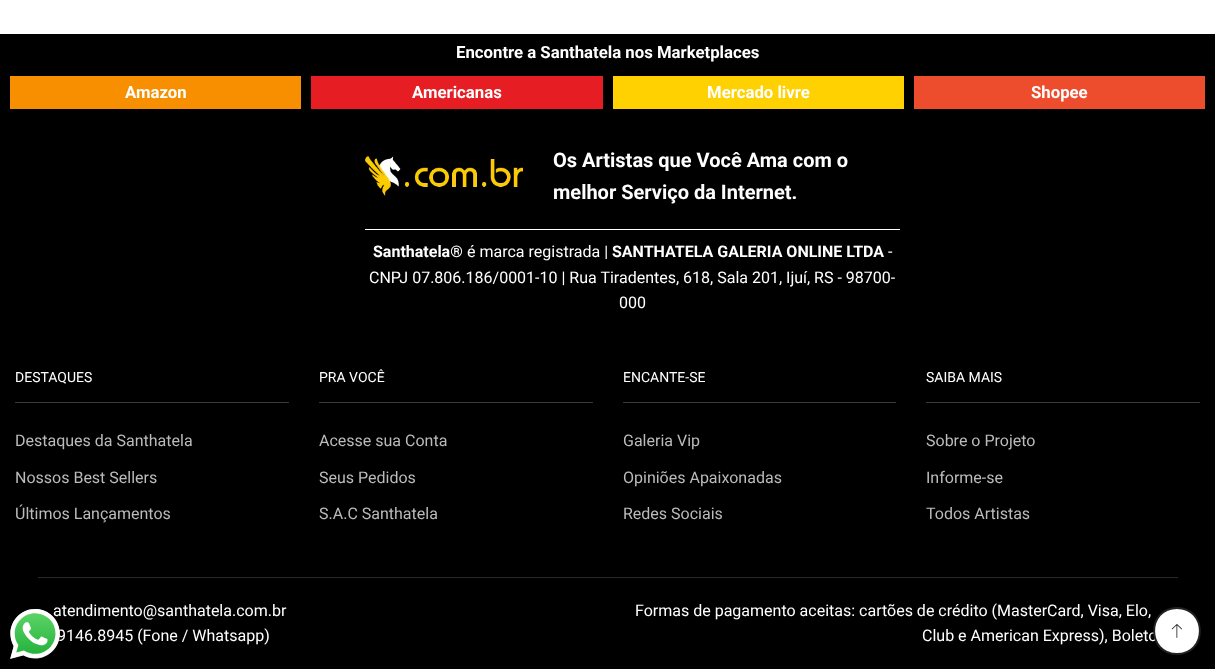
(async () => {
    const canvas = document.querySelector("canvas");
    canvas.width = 1215;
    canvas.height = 669;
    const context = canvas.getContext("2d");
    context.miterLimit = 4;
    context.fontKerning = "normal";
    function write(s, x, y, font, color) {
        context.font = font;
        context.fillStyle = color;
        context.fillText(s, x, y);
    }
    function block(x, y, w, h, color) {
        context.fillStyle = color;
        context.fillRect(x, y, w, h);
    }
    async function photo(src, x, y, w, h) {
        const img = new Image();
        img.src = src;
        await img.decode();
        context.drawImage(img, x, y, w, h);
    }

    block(0, 0, 1215, 669, "rgb(255, 255, 255)");
    block(0, 34, 1215, 544, "rgb(0, 0, 0)");
    write("Encontre a Santhatela nos Marketplaces", 456, 58, "bold 16.75px Roboto", "rgb(255, 255, 255)");
    block(10, 76, 291, 33, "rgb(247, 143, 0)");
    write("Amazon", 125, 98, "bold 16.75px Roboto", "rgb(255, 255, 255)");
    block(311, 76, 292, 33, "rgb(231, 29, 36)");
    write("Americanas", 412, 98, "bold 16.75px Roboto", "rgb(255, 255, 255)");
    block(613, 76, 291, 33, "rgb(255, 209, 1)");
    write("Mercado livre", 707, 98, "bold 16.75px Roboto", "rgb(255, 255, 255)");
    block(914, 76, 291, 33, "rgb(238, 77, 45)");
    write("Shopee", 1031, 98, "bold 16.75px Roboto", "rgb(255, 255, 255)");
    await photo("media/1.png", 365, 156, 158, 40);
    write("Os Artistas que Você Ama com o", 553, 167, "bold 20px Roboto", "rgb(255, 255, 255)");
    write("melhor Serviço da Internet.", 553, 199, "bold 20px Roboto", "rgb(255, 255, 255)");
    block(365, 229, 535, 1, "rgb(255, 255, 255)");
    write("Santhatela®", 373, 257, "bold 16px Roboto", "rgb(255, 255, 255)");
    write("é marca registrada |", 467, 257, "16px Roboto", "rgb(255, 255, 255)");
    write("SANTHATELA GALERIA ONLINE LTDA", 612, 257, "bold 16px Roboto", "rgb(255, 255, 255)");
    write("-", 888, 257, "16px Roboto", "rgb(255, 255, 255)");
    write("CNPJ 07.806.186/0001-10 | Rua Tiradentes, 618, Sala 201, Ijuí, RS - 98700-", 369, 283, "16px Roboto", "rgb(255, 255, 255)");
    write("000", 619, 308, "16px Roboto", "rgb(255, 255, 255)");
    block(15, 402, 274, 1, "rgb(57, 57, 57)");
    write("DESTAQUES", 15, 382, "14px Roboto", "rgb(255, 255, 255)");
    write("Destaques da Santhatela", 15, 446, "16px Roboto", "rgb(187, 187, 187)");
    write("Nossos Best Sellers", 15, 483, "16px Roboto", "rgb(187, 187, 187)");
    write("Últimos Lançamentos", 15, 519, "16px Roboto", "rgb(187, 187, 187)");
    block(319, 402, 274, 1, "rgb(57, 57, 57)");
    write("PRA VOCÊ", 319, 382, "14px Roboto", "rgb(255, 255, 255)");
    write("Acesse sua Conta", 319, 446, "16px Roboto", "rgb(187, 187, 187)");
    write("Seus Pedidos", 319, 483, "16px Roboto", "rgb(187, 187, 187)");
    write("S.A.C Santhatela", 319, 519, "16px Roboto", "rgb(187, 187, 187)");
    block(623, 402, 273, 1, "rgb(57, 57, 57)");
    write("ENCANTE-SE", 623, 382, "14px Roboto", "rgb(255, 255, 255)");
    write("Galeria Vip", 623, 446, "16px Roboto", "rgb(187, 187, 187)");
    write("Opiniões Apaixonadas", 623, 483, "16px Roboto", "rgb(187, 187, 187)");
    write("Redes Sociais", 623, 519, "16px Roboto", "rgb(187, 187, 187)");
    block(926, 402, 274, 1, "rgb(57, 57, 57)");
    write("SAIBA MAIS", 926, 382, "14px Roboto", "rgb(255, 255, 255)");
    write("Sobre o Projeto", 926, 446, "16px Roboto", "rgb(187, 187, 187)");
    write("Informe-se", 926, 483, "16px Roboto", "rgb(187, 187, 187)");
    write("Todos Artistas", 926, 519, "16px Roboto", "rgb(187, 187, 187)");
    block(38, 577, 1140, 1, "rgb(40, 40, 40)");
    block(0, 578, 1215, 91, "rgb(0, 0, 0)");
    write("atendimento@santhatela.com.br", 53, 616, "16px Roboto", "rgb(255, 255, 255)");
    write("9146.8945 (Fone / Whatsapp)", 57, 641, "16px Roboto", "rgb(255, 255, 255)");
    write("Formas de pagamento aceitas: cartões de crédito (MasterCard, Visa, Elo,", 635, 616, "16px Roboto", "rgb(255, 255, 255)");
    write("Club e American Express), Boleto", 922, 641, "16px Roboto", "rgb(255, 255, 255)");
    context.beginPath();
    context.arc(1177, 631, 22.5, 0, Math.PI * 2);
    context.fill();
    context.strokeStyle = "rgb(225, 225, 225)";
    context.stroke();
    context.beginPath();
    context.moveTo(1177, 608);
    context.bezierCurveTo(1207.5, 608, 1207.5, 654, 1177, 654);
    context.bezierCurveTo(1146.5, 654, 1146.5, 608, 1177, 608);
    context.strokeStyle = "rgb(34, 34, 34)";
    context.lineWidth = 1.9;
    context.stroke();
    await photo("media/2.png", 1171, 624, 11, 14);
    await photo("media/3.png", 10, 609, 50, 50);
})();
